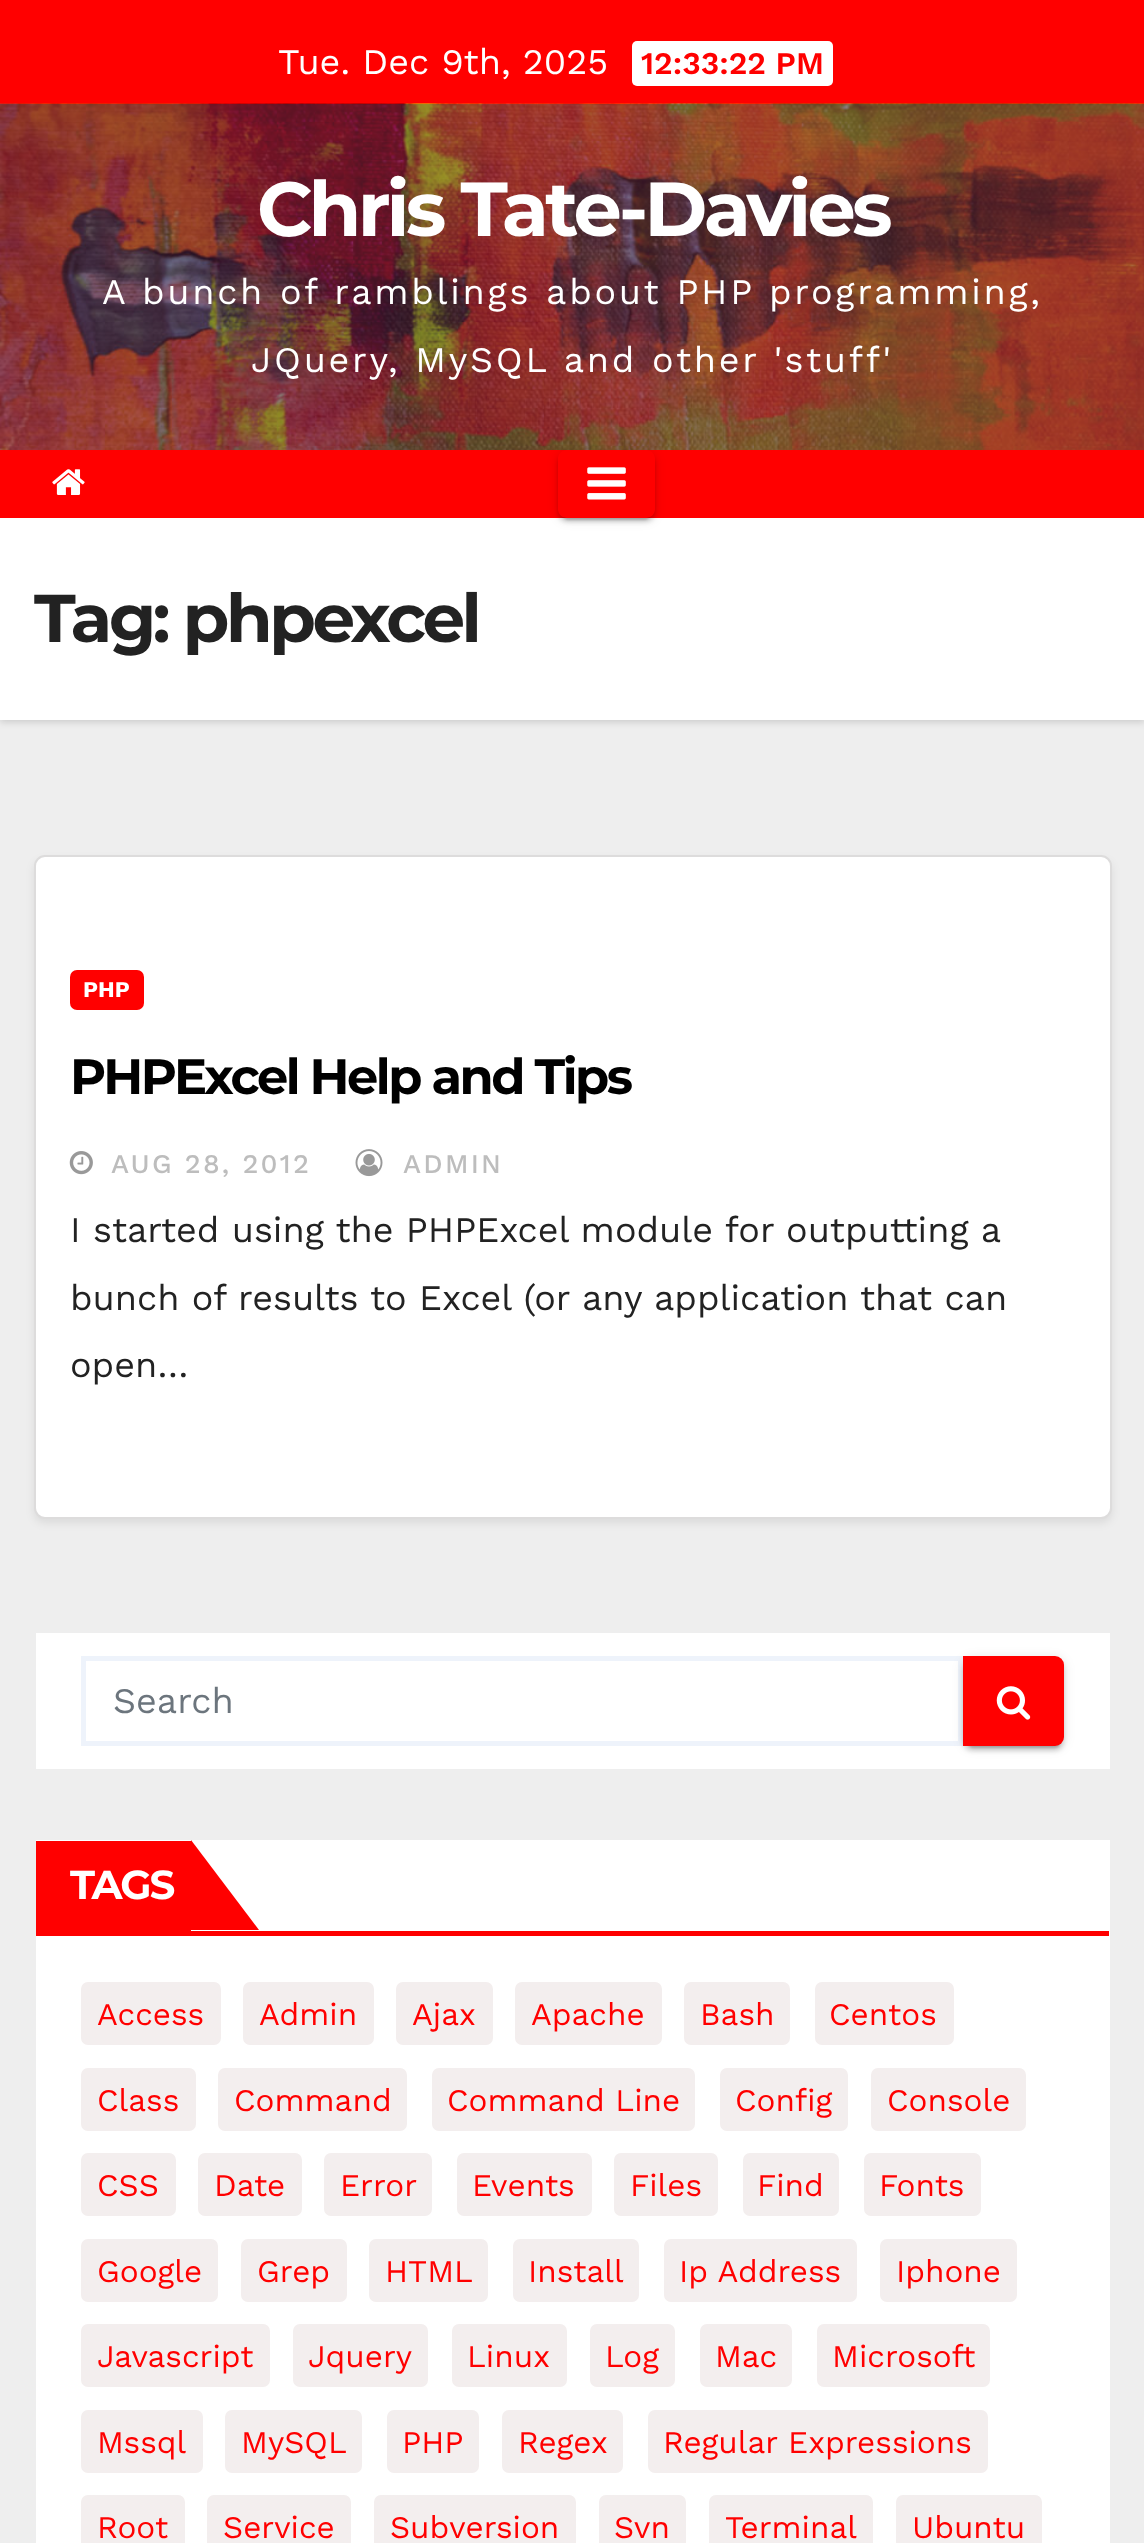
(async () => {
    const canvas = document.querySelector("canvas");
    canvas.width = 1144;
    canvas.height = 2543;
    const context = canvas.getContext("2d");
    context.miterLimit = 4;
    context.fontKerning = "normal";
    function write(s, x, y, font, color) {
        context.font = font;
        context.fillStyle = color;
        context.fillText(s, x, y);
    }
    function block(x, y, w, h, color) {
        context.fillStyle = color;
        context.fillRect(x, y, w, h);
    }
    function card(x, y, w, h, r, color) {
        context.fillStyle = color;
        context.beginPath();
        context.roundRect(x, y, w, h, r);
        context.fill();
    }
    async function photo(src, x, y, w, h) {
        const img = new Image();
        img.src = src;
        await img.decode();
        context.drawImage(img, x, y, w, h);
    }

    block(0, 0, 1144, 2543, "rgb(238, 238, 238)");
    block(0, 0, 1144, 104, "rgb(255, 0, 0)");
    write("Tue. Dec 9th, 2025", 278, 74, "36px Work Sans", "rgb(255, 255, 255)");
    card(632, 41, 201, 45, 5, "rgb(255, 255, 255)");
    write("12:33:22 PM", 641, 74, "600 31.5px Work Sans", "rgb(255, 0, 0)");
    await photo("media/1.png", 0, 103, 1144, 347);
    context.letterSpacing = "-3.8px";
    write("Chris Tate-Davies", 257, 236, "bold 76.5px Montserrat", "rgb(255, 255, 255)");
    context.letterSpacing = "2.7px";
    write("A bunch of ramblings about PHP programming,", 102, 304, "36px Work Sans", "rgb(255, 255, 255)");
    write("JQuery, MySQL and other 'stuff'", 251, 372, "36px Work Sans", "rgb(255, 255, 255)");
    context.fillStyle = "rgba(0, 0, 0, 0.15)";
    context.filter = "blur(3.5px)";
    context.beginPath();
    context.rect(0, 520, 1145, 202);
    context.fill();
    context.filter = "none";
    block(0, 450, 1144, 68, "rgb(255, 0, 0)");
    await photo("media/2.png", 52, 469, 33, 26);
    block(0, 518, 1144, 202, "rgb(255, 255, 255)");
    context.save();
    context.beginPath();
    context.moveTo(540, 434);
    context.lineTo(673, 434);
    context.lineTo(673, 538);
    context.lineTo(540, 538);
    context.closePath();
    context.moveTo(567, 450);
    context.lineTo(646, 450);
    context.bezierCurveTo(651, 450, 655, 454, 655, 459);
    context.lineTo(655, 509);
    context.bezierCurveTo(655, 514, 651, 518, 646, 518);
    context.lineTo(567, 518);
    context.bezierCurveTo(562, 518, 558, 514, 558, 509);
    context.lineTo(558, 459);
    context.bezierCurveTo(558, 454, 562, 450, 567, 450);
    context.closePath();
    context.clip("evenodd");
    context.fillStyle = "rgba(0, 0, 0, 0.12)";
    context.filter = "blur(5.5px)";
    context.beginPath();
    context.roundRect(558, 452, 97, 68, 9);
    context.fill();
    context.filter = "none";
    context.restore();
    context.save();
    context.beginPath();
    context.moveTo(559, 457);
    context.lineTo(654, 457);
    context.lineTo(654, 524);
    context.lineTo(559, 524);
    context.closePath();
    context.moveTo(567, 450);
    context.lineTo(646, 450);
    context.bezierCurveTo(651, 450, 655, 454, 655, 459);
    context.lineTo(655, 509);
    context.bezierCurveTo(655, 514, 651, 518, 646, 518);
    context.lineTo(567, 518);
    context.bezierCurveTo(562, 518, 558, 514, 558, 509);
    context.lineTo(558, 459);
    context.bezierCurveTo(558, 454, 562, 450, 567, 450);
    context.closePath();
    context.clip("evenodd");
    context.fillStyle = "rgba(0, 0, 0, 0.2)";
    context.filter = "blur(1px)";
    context.beginPath();
    context.roundRect(563, 461, 87, 59, 5);
    context.fill();
    context.filter = "none";
    context.restore();
    context.save();
    context.beginPath();
    context.moveTo(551, 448);
    context.lineTo(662, 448);
    context.lineTo(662, 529);
    context.lineTo(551, 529);
    context.closePath();
    context.moveTo(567, 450);
    context.lineTo(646, 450);
    context.bezierCurveTo(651, 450, 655, 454, 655, 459);
    context.lineTo(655, 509);
    context.bezierCurveTo(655, 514, 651, 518, 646, 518);
    context.lineTo(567, 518);
    context.bezierCurveTo(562, 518, 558, 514, 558, 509);
    context.lineTo(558, 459);
    context.bezierCurveTo(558, 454, 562, 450, 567, 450);
    context.closePath();
    context.clip("evenodd");
    context.fillStyle = "rgba(0, 0, 0, 0.14)";
    context.filter = "blur(2px)";
    context.beginPath();
    context.roundRect(558, 455, 97, 67, 9);
    context.fill();
    context.filter = "none";
    context.restore();
    await photo("media/3.png", 587, 467, 39, 33);
    context.letterSpacing = "-3.4px";
    write("Tag: phpexcel", 34, 642, "bold 67.5px Montserrat", "rgb(34, 34, 34)");
    context.fillStyle = "rgba(0, 0, 0, 0.08)";
    context.filter = "blur(4.5px)";
    context.beginPath();
    context.roundRect(34, 860, 1078, 663, 11);
    context.fill();
    context.filter = "none";
    context.fillStyle = "rgb(255, 255, 255)";
    context.beginPath();
    context.roundRect(35, 856, 1076, 662, 10);
    context.fill();
    context.strokeStyle = "rgb(221, 220, 220)";
    context.lineWidth = 2;
    context.stroke();
    card(70, 970, 74, 40, 7, "rgb(255, 0, 0)");
    context.letterSpacing = "0px";
    write("PHP", 83, 997, "bold 22.5px Work Sans", "rgb(255, 255, 255)");
    context.letterSpacing = "-2.5px";
    write("PHPExcel Help and Tips", 70, 1094, "bold 49.5px Montserrat", "rgb(0, 0, 0)");
    await photo("media/4.png", 69, 1151, 24, 24);
    context.letterSpacing = "2.25px";
    write("AUG 28, 2012", 111, 1173, "500 27px Work Sans", "rgb(189, 189, 189)");
    await photo("media/5.png", 355, 1149, 28, 28);
    write("ADMIN", 403, 1173, "500 27px Work Sans", "rgb(189, 189, 189)");
    context.letterSpacing = "0px";
    write("I started using the PHPExcel module for outputting a", 70, 1242, "36px Work Sans", "rgb(34, 34, 34)");
    write("bunch of results to Excel (or any application that can", 70, 1310, "36px Work Sans", "rgb(34, 34, 34)");
    write("open…", 70, 1377, "36px Work Sans", "rgb(34, 34, 34)");
    block(36, 1633, 1074, 136, "rgb(255, 255, 255)");
    context.strokeStyle = "rgb(238, 243, 251)";
    context.lineWidth = 5;
    context.strokeRect(83.5, 1658.5, 877, 85);
    write("Search", 113, 1713, "36px Work Sans", "rgb(108, 117, 125)");
    context.fillStyle = "rgba(0, 0, 0, 0.12)";
    context.filter = "blur(5.5px)";
    context.beginPath();
    context.roundRect(963, 1658, 101, 90, 9);
    context.fill();
    context.filter = "none";
    context.fillStyle = "rgba(0, 0, 0, 0.2)";
    context.filter = "blur(1px)";
    context.beginPath();
    context.roundRect(968, 1667, 92, 81, 5);
    context.fill();
    context.filter = "none";
    context.fillStyle = "rgba(0, 0, 0, 0.14)";
    context.filter = "blur(2px)";
    context.beginPath();
    context.roundRect(963, 1661, 101, 90, 9);
    context.fill();
    context.filter = "none";
    context.fillStyle = "rgb(255, 0, 0)";
    context.beginPath();
    context.roundRect(963, 1656, 101, 90, [0, 9, 9, 0]);
    context.fill();
    await photo("media/6.png", 996, 1686, 35, 34);
    block(36, 1840, 1074, 703, "rgb(255, 255, 255)");
    block(36, 1931, 1073, 5, "rgb(255, 0, 0)");
    block(36, 1841, 155, 90, "rgb(255, 0, 0)");
    context.letterSpacing = "-2px";
    write("TAGS", 70, 1899, "bold 40.5px Montserrat", "rgb(255, 255, 255)");
    context.fillStyle = "rgb(255, 0, 0)";
    context.beginPath();
    context.moveTo(191, 1930);
    context.lineTo(191, 1840);
    context.lineTo(259, 1930);
    context.closePath();
    context.fill();
    context.fillStyle = "rgb(243, 238, 238)";
    context.beginPath();
    context.roundRect(82, 1983, 138, 61, 6);
    context.fill();
    context.strokeStyle = "rgb(243, 238, 238)";
    context.lineWidth = 2;
    context.stroke();
    context.letterSpacing = "0px";
    write("Access", 97, 2025, "31.5px Work Sans", "rgb(255, 0, 0)");
    context.fillStyle = "rgb(243, 238, 238)";
    context.beginPath();
    context.roundRect(244, 1983, 129, 61, 6);
    context.fill();
    context.stroke();
    write("Admin", 259, 2025, "31.5px Work Sans", "rgb(255, 0, 0)");
    context.fillStyle = "rgb(243, 238, 238)";
    context.beginPath();
    context.roundRect(397, 1983, 95, 61, 6);
    context.fill();
    context.stroke();
    write("Ajax", 412, 2025, "31.5px Work Sans", "rgb(255, 0, 0)");
    context.fillStyle = "rgb(243, 238, 238)";
    context.beginPath();
    context.roundRect(516, 1983, 145, 61, 6);
    context.fill();
    context.stroke();
    write("Apache", 531, 2025, "31.5px Work Sans", "rgb(255, 0, 0)");
    context.fillStyle = "rgb(243, 238, 238)";
    context.beginPath();
    context.roundRect(685, 1983, 104, 61, 6);
    context.fill();
    context.stroke();
    write("Bash", 700, 2025, "31.5px Work Sans", "rgb(255, 0, 0)");
    context.fillStyle = "rgb(243, 238, 238)";
    context.beginPath();
    context.roundRect(816, 1983, 137, 61, 6);
    context.fill();
    context.stroke();
    write("Centos", 829, 2025, "31.5px Work Sans", "rgb(255, 0, 0)");
    context.fillStyle = "rgb(243, 238, 238)";
    context.beginPath();
    context.roundRect(82, 2069, 113, 61, 6);
    context.fill();
    context.stroke();
    write("Class", 97, 2111, "31.5px Work Sans", "rgb(255, 0, 0)");
    context.fillStyle = "rgb(243, 238, 238)";
    context.beginPath();
    context.roundRect(219, 2069, 187, 61, 6);
    context.fill();
    context.stroke();
    write("Command", 234, 2111, "31.5px Work Sans", "rgb(255, 0, 0)");
    context.fillStyle = "rgb(243, 238, 238)";
    context.beginPath();
    context.roundRect(433, 2069, 261, 61, 6);
    context.fill();
    context.stroke();
    write("Command Line", 447, 2111, "31.5px Work Sans", "rgb(255, 0, 0)");
    context.fillStyle = "rgb(243, 238, 238)";
    context.beginPath();
    context.roundRect(721, 2069, 126, 61, 6);
    context.fill();
    context.stroke();
    write("Config", 735, 2111, "31.5px Work Sans", "rgb(255, 0, 0)");
    context.fillStyle = "rgb(243, 238, 238)";
    context.beginPath();
    context.roundRect(872, 2069, 153, 61, 6);
    context.fill();
    context.stroke();
    write("Console", 887, 2111, "31.5px Work Sans", "rgb(255, 0, 0)");
    context.fillStyle = "rgb(243, 238, 238)";
    context.beginPath();
    context.roundRect(82, 2154, 93, 61, 6);
    context.fill();
    context.stroke();
    write("CSS", 97, 2196, "31.5px Work Sans", "rgb(255, 0, 0)");
    context.fillStyle = "rgb(243, 238, 238)";
    context.beginPath();
    context.roundRect(199, 2154, 102, 61, 6);
    context.fill();
    context.stroke();
    write("Date", 214, 2196, "31.5px Work Sans", "rgb(255, 0, 0)");
    context.fillStyle = "rgb(243, 238, 238)";
    context.beginPath();
    context.roundRect(325, 2154, 106, 61, 6);
    context.fill();
    context.stroke();
    write("Error", 340, 2196, "31.5px Work Sans", "rgb(255, 0, 0)");
    context.fillStyle = "rgb(243, 238, 238)";
    context.beginPath();
    context.roundRect(458, 2154, 133, 61, 6);
    context.fill();
    context.stroke();
    write("Events", 472, 2196, "31.5px Work Sans", "rgb(255, 0, 0)");
    context.fillStyle = "rgb(243, 238, 238)";
    context.beginPath();
    context.roundRect(615, 2154, 102, 61, 6);
    context.fill();
    context.stroke();
    write("Files", 630, 2196, "31.5px Work Sans", "rgb(255, 0, 0)");
    context.fillStyle = "rgb(243, 238, 238)";
    context.beginPath();
    context.roundRect(744, 2154, 94, 61, 6);
    context.fill();
    context.stroke();
    write("Find", 757, 2196, "31.5px Work Sans", "rgb(255, 0, 0)");
    context.fillStyle = "rgb(243, 238, 238)";
    context.beginPath();
    context.roundRect(865, 2154, 115, 61, 6);
    context.fill();
    context.stroke();
    write("Fonts", 879, 2196, "31.5px Work Sans", "rgb(255, 0, 0)");
    context.fillStyle = "rgb(243, 238, 238)";
    context.beginPath();
    context.roundRect(82, 2240, 135, 61, 6);
    context.fill();
    context.stroke();
    write("Google", 97, 2282, "31.5px Work Sans", "rgb(255, 0, 0)");
    context.fillStyle = "rgb(243, 238, 238)";
    context.beginPath();
    context.roundRect(242, 2240, 104, 61, 6);
    context.fill();
    context.stroke();
    write("Grep", 257, 2282, "31.5px Work Sans", "rgb(255, 0, 0)");
    context.fillStyle = "rgb(243, 238, 238)";
    context.beginPath();
    context.roundRect(370, 2240, 117, 61, 6);
    context.fill();
    context.stroke();
    write("HTML", 385, 2282, "31.5px Work Sans", "rgb(255, 0, 0)");
    context.fillStyle = "rgb(243, 238, 238)";
    context.beginPath();
    context.roundRect(514, 2240, 124, 61, 6);
    context.fill();
    context.stroke();
    write("Install", 528, 2282, "31.5px Work Sans", "rgb(255, 0, 0)");
    context.fillStyle = "rgb(243, 238, 238)";
    context.beginPath();
    context.roundRect(665, 2240, 191, 61, 6);
    context.fill();
    context.stroke();
    write("Ip Address", 679, 2282, "31.5px Work Sans", "rgb(255, 0, 0)");
    context.fillStyle = "rgb(243, 238, 238)";
    context.beginPath();
    context.roundRect(881, 2240, 135, 61, 6);
    context.fill();
    context.stroke();
    write("Iphone", 896, 2282, "31.5px Work Sans", "rgb(255, 0, 0)");
    context.fillStyle = "rgb(243, 238, 238)";
    context.beginPath();
    context.roundRect(82, 2325, 187, 61, 6);
    context.fill();
    context.stroke();
    write("Javascript", 97, 2367, "31.5px Work Sans", "rgb(255, 0, 0)");
    context.fillStyle = "rgb(243, 238, 238)";
    context.beginPath();
    context.roundRect(294, 2325, 133, 61, 6);
    context.fill();
    context.stroke();
    write("Jquery", 308, 2367, "31.5px Work Sans", "rgb(255, 0, 0)");
    context.fillStyle = "rgb(243, 238, 238)";
    context.beginPath();
    context.roundRect(453, 2325, 113, 61, 6);
    context.fill();
    context.stroke();
    write("Linux", 467, 2367, "31.5px Work Sans", "rgb(255, 0, 0)");
    context.fillStyle = "rgb(243, 238, 238)";
    context.beginPath();
    context.roundRect(591, 2325, 83, 61, 6);
    context.fill();
    context.stroke();
    write("Log", 605, 2367, "31.5px Work Sans", "rgb(255, 0, 0)");
    context.fillStyle = "rgb(243, 238, 238)";
    context.beginPath();
    context.roundRect(701, 2325, 90, 61, 6);
    context.fill();
    context.stroke();
    write("Mac", 715, 2367, "31.5px Work Sans", "rgb(255, 0, 0)");
    context.fillStyle = "rgb(243, 238, 238)";
    context.beginPath();
    context.roundRect(818, 2325, 171, 61, 6);
    context.fill();
    context.stroke();
    write("Microsoft", 832, 2367, "31.5px Work Sans", "rgb(255, 0, 0)");
    context.fillStyle = "rgb(243, 238, 238)";
    context.beginPath();
    context.roundRect(82, 2411, 120, 61, 6);
    context.fill();
    context.stroke();
    write("Mssql", 97, 2453, "31.5px Work Sans", "rgb(255, 0, 0)");
    context.fillStyle = "rgb(243, 238, 238)";
    context.beginPath();
    context.roundRect(226, 2411, 135, 61, 6);
    context.fill();
    context.stroke();
    write("MySQL", 241, 2453, "31.5px Work Sans", "rgb(255, 0, 0)");
    context.fillStyle = "rgb(243, 238, 238)";
    context.beginPath();
    context.roundRect(388, 2411, 90, 61, 6);
    context.fill();
    context.stroke();
    write("PHP", 402, 2453, "31.5px Work Sans", "rgb(255, 0, 0)");
    context.fillStyle = "rgb(243, 238, 238)";
    context.beginPath();
    context.roundRect(503, 2411, 119, 61, 6);
    context.fill();
    context.stroke();
    write("Regex", 518, 2453, "31.5px Work Sans", "rgb(255, 0, 0)");
    context.fillStyle = "rgb(243, 238, 238)";
    context.beginPath();
    context.roundRect(649, 2411, 338, 61, 6);
    context.fill();
    context.stroke();
    write("Regular Expressions", 663, 2453, "31.5px Work Sans", "rgb(255, 0, 0)");
    context.fillStyle = "rgb(243, 238, 238)";
    context.beginPath();
    context.roundRect(82, 2496, 102, 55, 6);
    context.fill();
    context.stroke();
    write("Root", 97, 2538, "31.5px Work Sans", "rgb(255, 0, 0)");
    context.fillStyle = "rgb(243, 238, 238)";
    context.beginPath();
    context.roundRect(208, 2496, 142, 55, 6);
    context.fill();
    context.stroke();
    write("Service", 223, 2538, "31.5px Work Sans", "rgb(255, 0, 0)");
    context.fillStyle = "rgb(243, 238, 238)";
    context.beginPath();
    context.roundRect(375, 2496, 200, 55, 6);
    context.fill();
    context.stroke();
    write("Subversion", 390, 2538, "31.5px Work Sans", "rgb(255, 0, 0)");
    context.fillStyle = "rgb(243, 238, 238)";
    context.beginPath();
    context.roundRect(600, 2496, 85, 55, 6);
    context.fill();
    context.stroke();
    write("Svn", 614, 2538, "31.5px Work Sans", "rgb(255, 0, 0)");
    context.fillStyle = "rgb(243, 238, 238)";
    context.beginPath();
    context.roundRect(710, 2496, 162, 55, 6);
    context.fill();
    context.stroke();
    write("Terminal", 725, 2538, "31.5px Work Sans", "rgb(255, 0, 0)");
    context.fillStyle = "rgb(243, 238, 238)";
    context.beginPath();
    context.roundRect(897, 2496, 144, 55, 6);
    context.fill();
    context.stroke();
    write("Ubuntu", 912, 2538, "31.5px Work Sans", "rgb(255, 0, 0)");
})();
